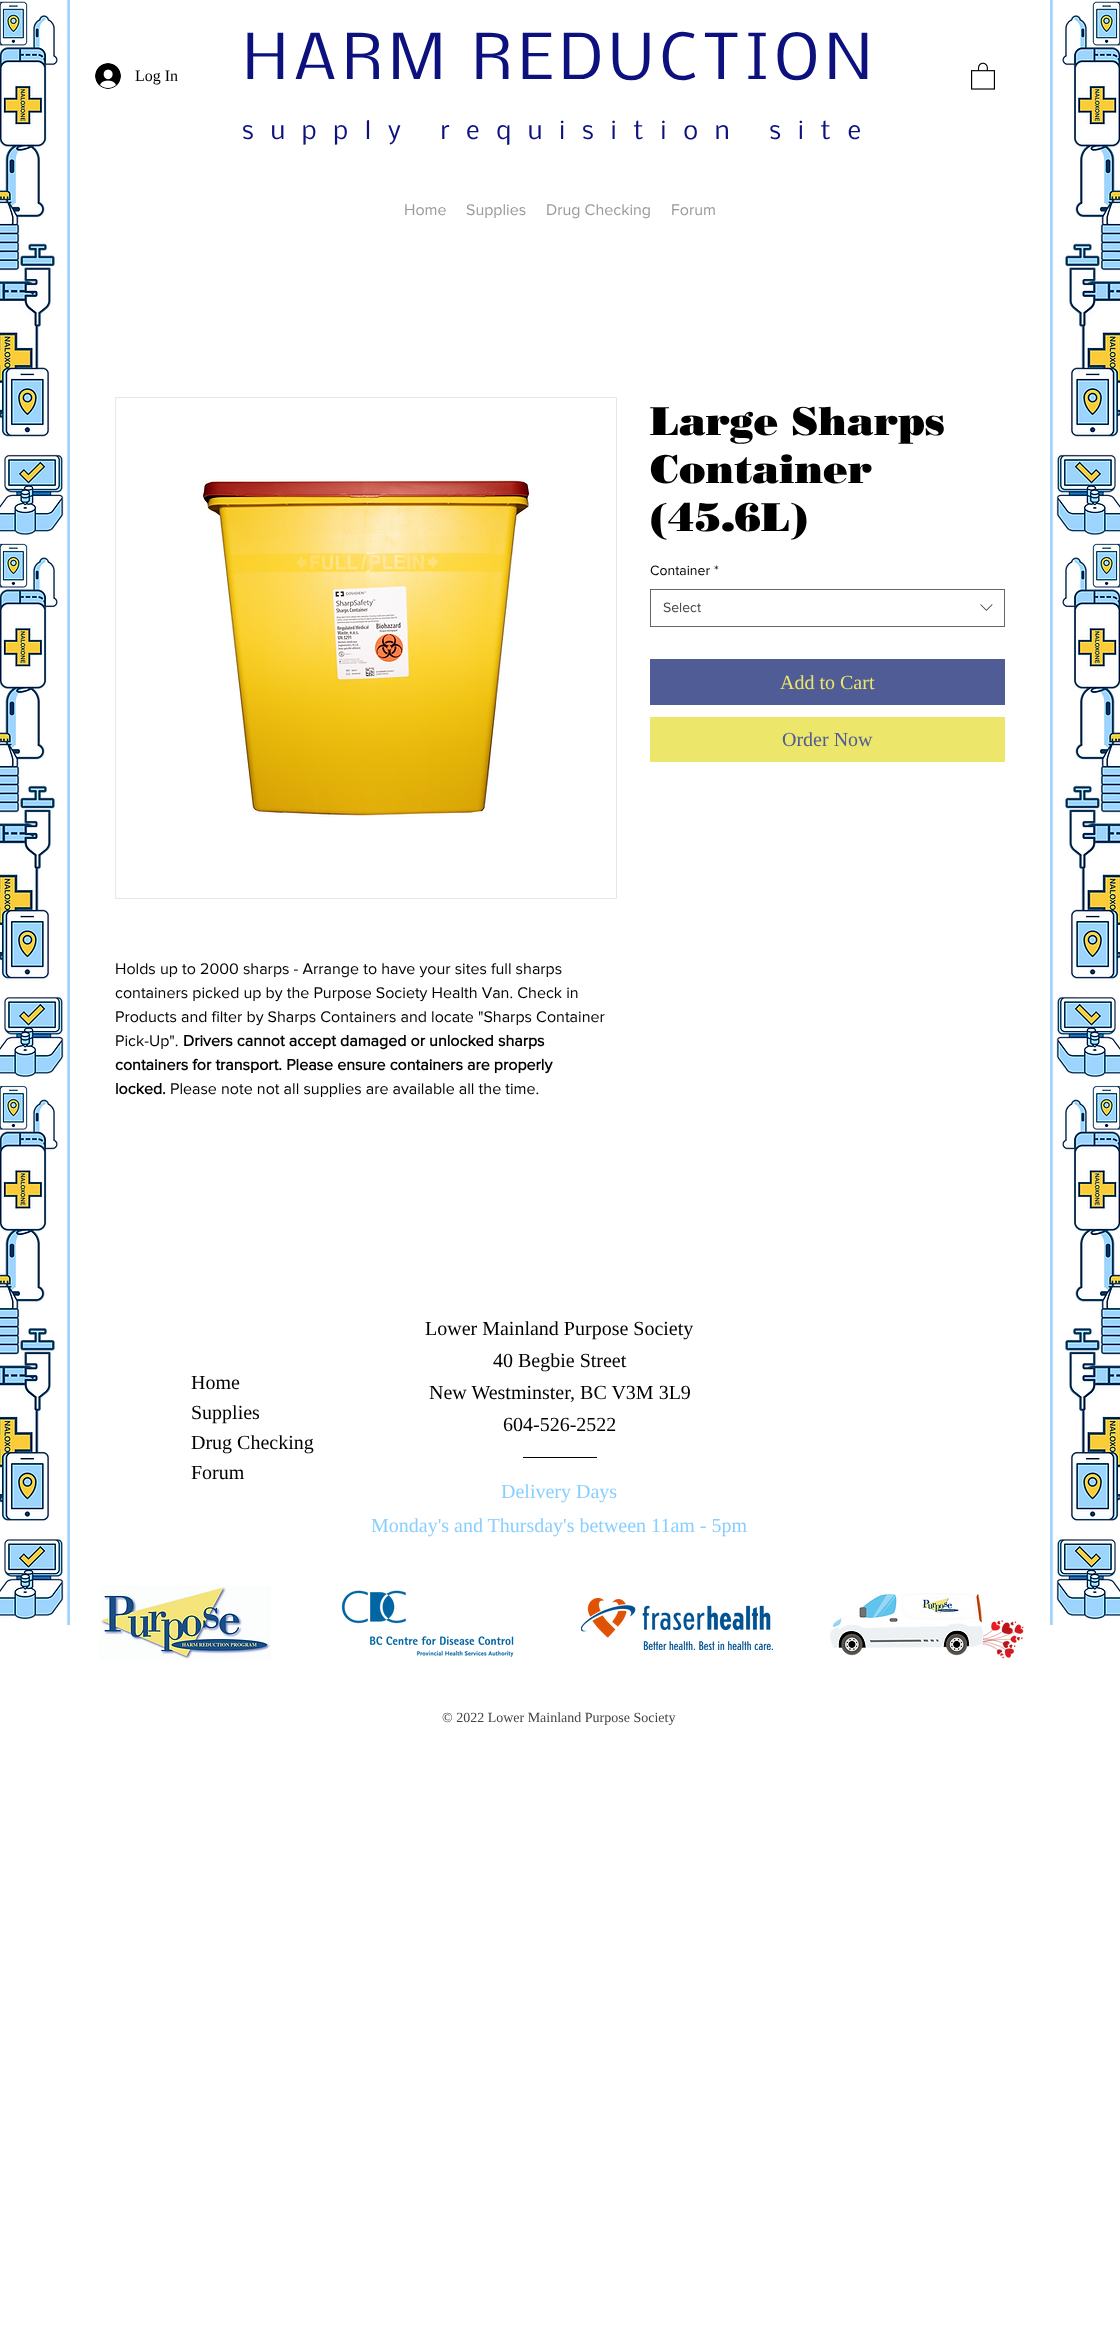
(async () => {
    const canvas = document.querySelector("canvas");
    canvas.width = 1120;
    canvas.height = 2325;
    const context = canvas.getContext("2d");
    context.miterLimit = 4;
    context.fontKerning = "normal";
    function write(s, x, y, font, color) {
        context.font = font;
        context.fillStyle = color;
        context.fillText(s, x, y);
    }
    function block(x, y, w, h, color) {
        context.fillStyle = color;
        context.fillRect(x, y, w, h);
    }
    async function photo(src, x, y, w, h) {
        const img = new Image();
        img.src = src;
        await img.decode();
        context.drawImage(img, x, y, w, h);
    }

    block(0, 0, 1120, 2325, "rgb(255, 255, 255)");
    await photo("media/1.png", 0, 0, 70, 1625);
    await photo("media/2.png", 95, 63, 26, 26);
    write("Log In", 135, 81, "16px Liberation Serif", "rgb(0, 0, 0)");
    context.letterSpacing = "6px";
    write("HARM REDUCTION", 243, 79, "60px Nobile", "rgb(12, 17, 126)");
    await photo("media/3.png", 971, 62, 24, 28);
    await photo("media/4.png", 1050, 0, 70, 1625);
    context.letterSpacing = "16.8px";
    write("supply requisition site", 242, 139, "24px Nobile", "rgb(12, 17, 126)");
    context.letterSpacing = "0px";
    write("Home", 404, 215, "16px 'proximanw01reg'", "rgb(153, 153, 151)");
    write("Supplies", 466, 215, "16px 'proximanw01reg'", "rgb(153, 153, 151)");
    write("Drug Checking", 546, 215, "16px 'proximanw01reg'", "rgb(153, 153, 151)");
    write("Forum", 671, 215, "16px 'proximanw01reg'", "rgb(153, 153, 151)");
    write("Large Sharps", 650, 435, "900 40px 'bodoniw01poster'", "rgb(0, 0, 0)");
    write("Container", 650, 483, "900 40px 'bodoniw01poster'", "rgb(0, 0, 0)");
    write("(45.6L)", 650, 531, "900 40px 'bodoniw01poster'", "rgb(0, 0, 0)");
    write("Container", 650, 575, "14px 'proximanw01reg'", "rgb(0, 0, 0)");
    write("*", 714, 575, "14px 'proximanw01reg'", "rgb(0, 0, 0)");
    context.strokeStyle = "rgb(102, 102, 102)";
    context.strokeRect(650.5, 589.5, 354, 37);
    write("Select", 663, 612, "14px 'proximanw01reg'", "rgb(68, 68, 68)");
    await photo("media/5.png", 980, 604, 13, 7);
    block(650, 659, 355, 46, "rgb(80, 92, 149)");
    write("Add to Cart", 780, 689, "20px Liberation Serif", "rgb(236, 230, 107)");
    block(650, 717, 355, 45, "rgb(236, 230, 107)");
    write("Order Now", 782, 746, "20px Liberation Serif", "rgb(80, 92, 149)");
    context.strokeStyle = "rgb(232, 230, 230)";
    context.strokeRect(115.5, 397.5, 501, 501);
    await photo("media/6.png", 201, 479, 330, 338);
    write("Holds up to 2000 sharps - Arrange to have your sites full sharps", 115, 974, "16px 'proximanw01reg'", "rgb(0, 0, 0)");
    write("containers picked up by the Purpose Society Health Van. Check in", 115, 998, "16px 'proximanw01reg'", "rgb(0, 0, 0)");
    write("Products and filter by Sharps Containers and locate \"Sharps Container", 115, 1022, "16px 'proximanw01reg'", "rgb(0, 0, 0)");
    write("Pick-Up\".", 115, 1046, "16px 'proximanw01reg'", "rgb(0, 0, 0)");
    write("Drivers cannot accept damaged or unlocked sharps", 183, 1046, "bold 16px 'proximanw01reg'", "rgb(0, 0, 0)");
    write("containers for transport. Please ensure containers are properly", 115, 1070, "bold 16px 'proximanw01reg'", "rgb(0, 0, 0)");
    write("locked.", 115, 1094, "bold 16px 'proximanw01reg'", "rgb(0, 0, 0)");
    write("Please note not all supplies are available all the time.", 170, 1094, "16px 'proximanw01reg'", "rgb(0, 0, 0)");
    write("Home", 191, 1389, "20px Liberation Serif", "rgb(0, 0, 0)");
    write("Supplies", 191, 1419, "20px Liberation Serif", "rgb(0, 0, 0)");
    write("Drug Checking", 191, 1449, "20px Liberation Serif", "rgb(0, 0, 0)");
    write("Forum", 191, 1479, "20px Liberation Serif", "rgb(0, 0, 0)");
    write("Lower Mainland Purpose Society", 425, 1335, "20px Liberation Serif", "rgb(0, 0, 0)");
    write("40 Begbie Street", 493, 1367, "20px Liberation Serif", "rgb(0, 0, 0)");
    write("New Westminster, BC V3M 3L9", 429, 1399, "20px Liberation Serif", "rgb(0, 0, 0)");
    write("604-526-2522", 503, 1431, "20px Liberation Serif", "rgb(0, 0, 0)");
    write("Delivery Days", 501, 1498, "20px Liberation Serif", "rgb(136, 207, 255)");
    write("Monday's and Thursday's between 11am - 5pm", 371, 1532, "20px Liberation Serif", "rgb(136, 207, 255)");
    block(523, 1457, 74, 1, "rgb(0, 0, 0)");
    await photo("media/7.png", 99, 1586, 172, 74);
    await photo("media/8.png", 341, 1590, 173, 67);
    await photo("media/9.png", 581, 1598, 192, 52);
    await photo("media/10.png", 830, 1593, 194, 66);
    write("© 2022 Lower Mainland Purpose Society", 442, 1722, "14px Liberation Serif", "rgb(68, 68, 68)");
})();
